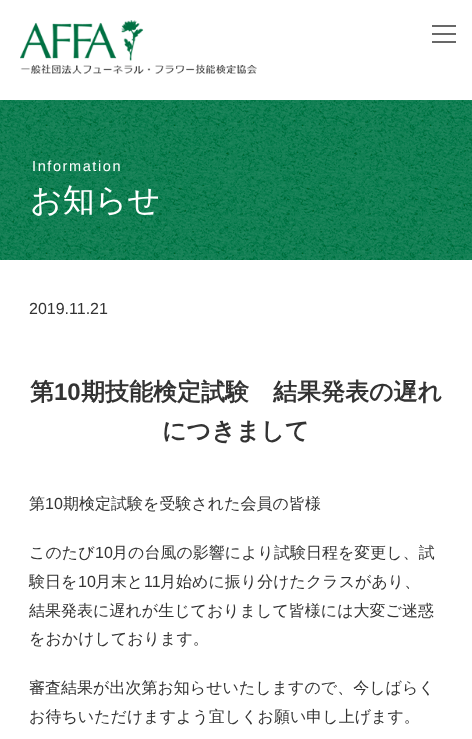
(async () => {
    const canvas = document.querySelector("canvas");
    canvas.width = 472;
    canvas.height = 739;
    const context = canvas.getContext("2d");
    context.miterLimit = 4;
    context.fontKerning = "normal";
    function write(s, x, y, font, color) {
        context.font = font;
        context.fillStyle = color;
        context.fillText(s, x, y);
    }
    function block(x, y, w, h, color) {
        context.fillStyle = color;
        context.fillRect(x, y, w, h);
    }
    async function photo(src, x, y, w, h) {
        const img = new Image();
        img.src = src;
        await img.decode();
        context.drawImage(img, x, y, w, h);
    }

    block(0, 0, 472, 739, "rgb(255, 255, 255)");
    await photo("media/1.png", 20, 20, 237, 54);
    block(432, 25, 24, 2, "rgb(104, 104, 104)");
    block(432, 33, 24, 2, "rgb(104, 104, 104)");
    block(432, 41, 24, 2, "rgb(104, 104, 104)");
    await photo("media/2.png", 0, 100, 472, 160);
    context.letterSpacing = "1.6px";
    write("Information", 32, 171, "14.5px Liberation Sans", "rgb(255, 255, 255)");
    context.letterSpacing = "0px";
    write("お知らせ", 30, 211, "500 32px WenQuanYi Zen Hei", "rgb(255, 255, 255)");
    write("2019.11.21", 29, 314, "16px Liberation Sans", "rgb(51, 51, 51)");
    write("第", 30, 400, "bold 24px WenQuanYi Zen Hei", "rgb(51, 51, 51)");
    write("10", 54, 400, "bold 24px Liberation Sans", "rgb(51, 51, 51)");
    write("期技能検定試験　結果発表の遅れ", 81, 400, "bold 24px WenQuanYi Zen Hei", "rgb(51, 51, 51)");
    write("につきまして", 162, 439, "bold 24px WenQuanYi Zen Hei", "rgb(51, 51, 51)");
    write("第", 29, 509, "500 16px WenQuanYi Zen Hei", "rgb(51, 51, 51)");
    write("10", 45, 509, "16px Liberation Sans", "rgb(51, 51, 51)");
    write("期検定試験を受験された会員の皆様", 63, 509, "500 16px WenQuanYi Zen Hei", "rgb(51, 51, 51)");
    write("このたび", 29, 558, "500 16px WenQuanYi Zen Hei", "rgb(51, 51, 51)");
    write("10", 95, 558, "16px Liberation Sans", "rgb(51, 51, 51)");
    write("月の台風の影響により試験日程を変更し、試", 112, 558, "500 16px WenQuanYi Zen Hei", "rgb(51, 51, 51)");
    write("験日を", 29, 587, "500 16px WenQuanYi Zen Hei", "rgb(51, 51, 51)");
    write("10", 78, 587, "16px Liberation Sans", "rgb(51, 51, 51)");
    write("月末と", 95, 587, "500 16px WenQuanYi Zen Hei", "rgb(51, 51, 51)");
    write("11", 144, 587, "16px Liberation Sans", "rgb(51, 51, 51)");
    write("月始めに振り分けたクラスがあり、", 160, 587, "500 16px WenQuanYi Zen Hei", "rgb(51, 51, 51)");
    write("結果発表に遅れが生じておりまして皆様には大変ご迷惑", 29, 616, "500 16px WenQuanYi Zen Hei", "rgb(51, 51, 51)");
    write("をおかけしております。", 29, 644, "500 16px WenQuanYi Zen Hei", "rgb(51, 51, 51)");
    write("審査結果が出次第お知らせいたしますので、今しばらく", 29, 693, "500 16px WenQuanYi Zen Hei", "rgb(51, 51, 51)");
    write("お待ちいただけますよう宜しくお願い申し上げます。", 29, 722, "500 16px WenQuanYi Zen Hei", "rgb(51, 51, 51)");
})();
